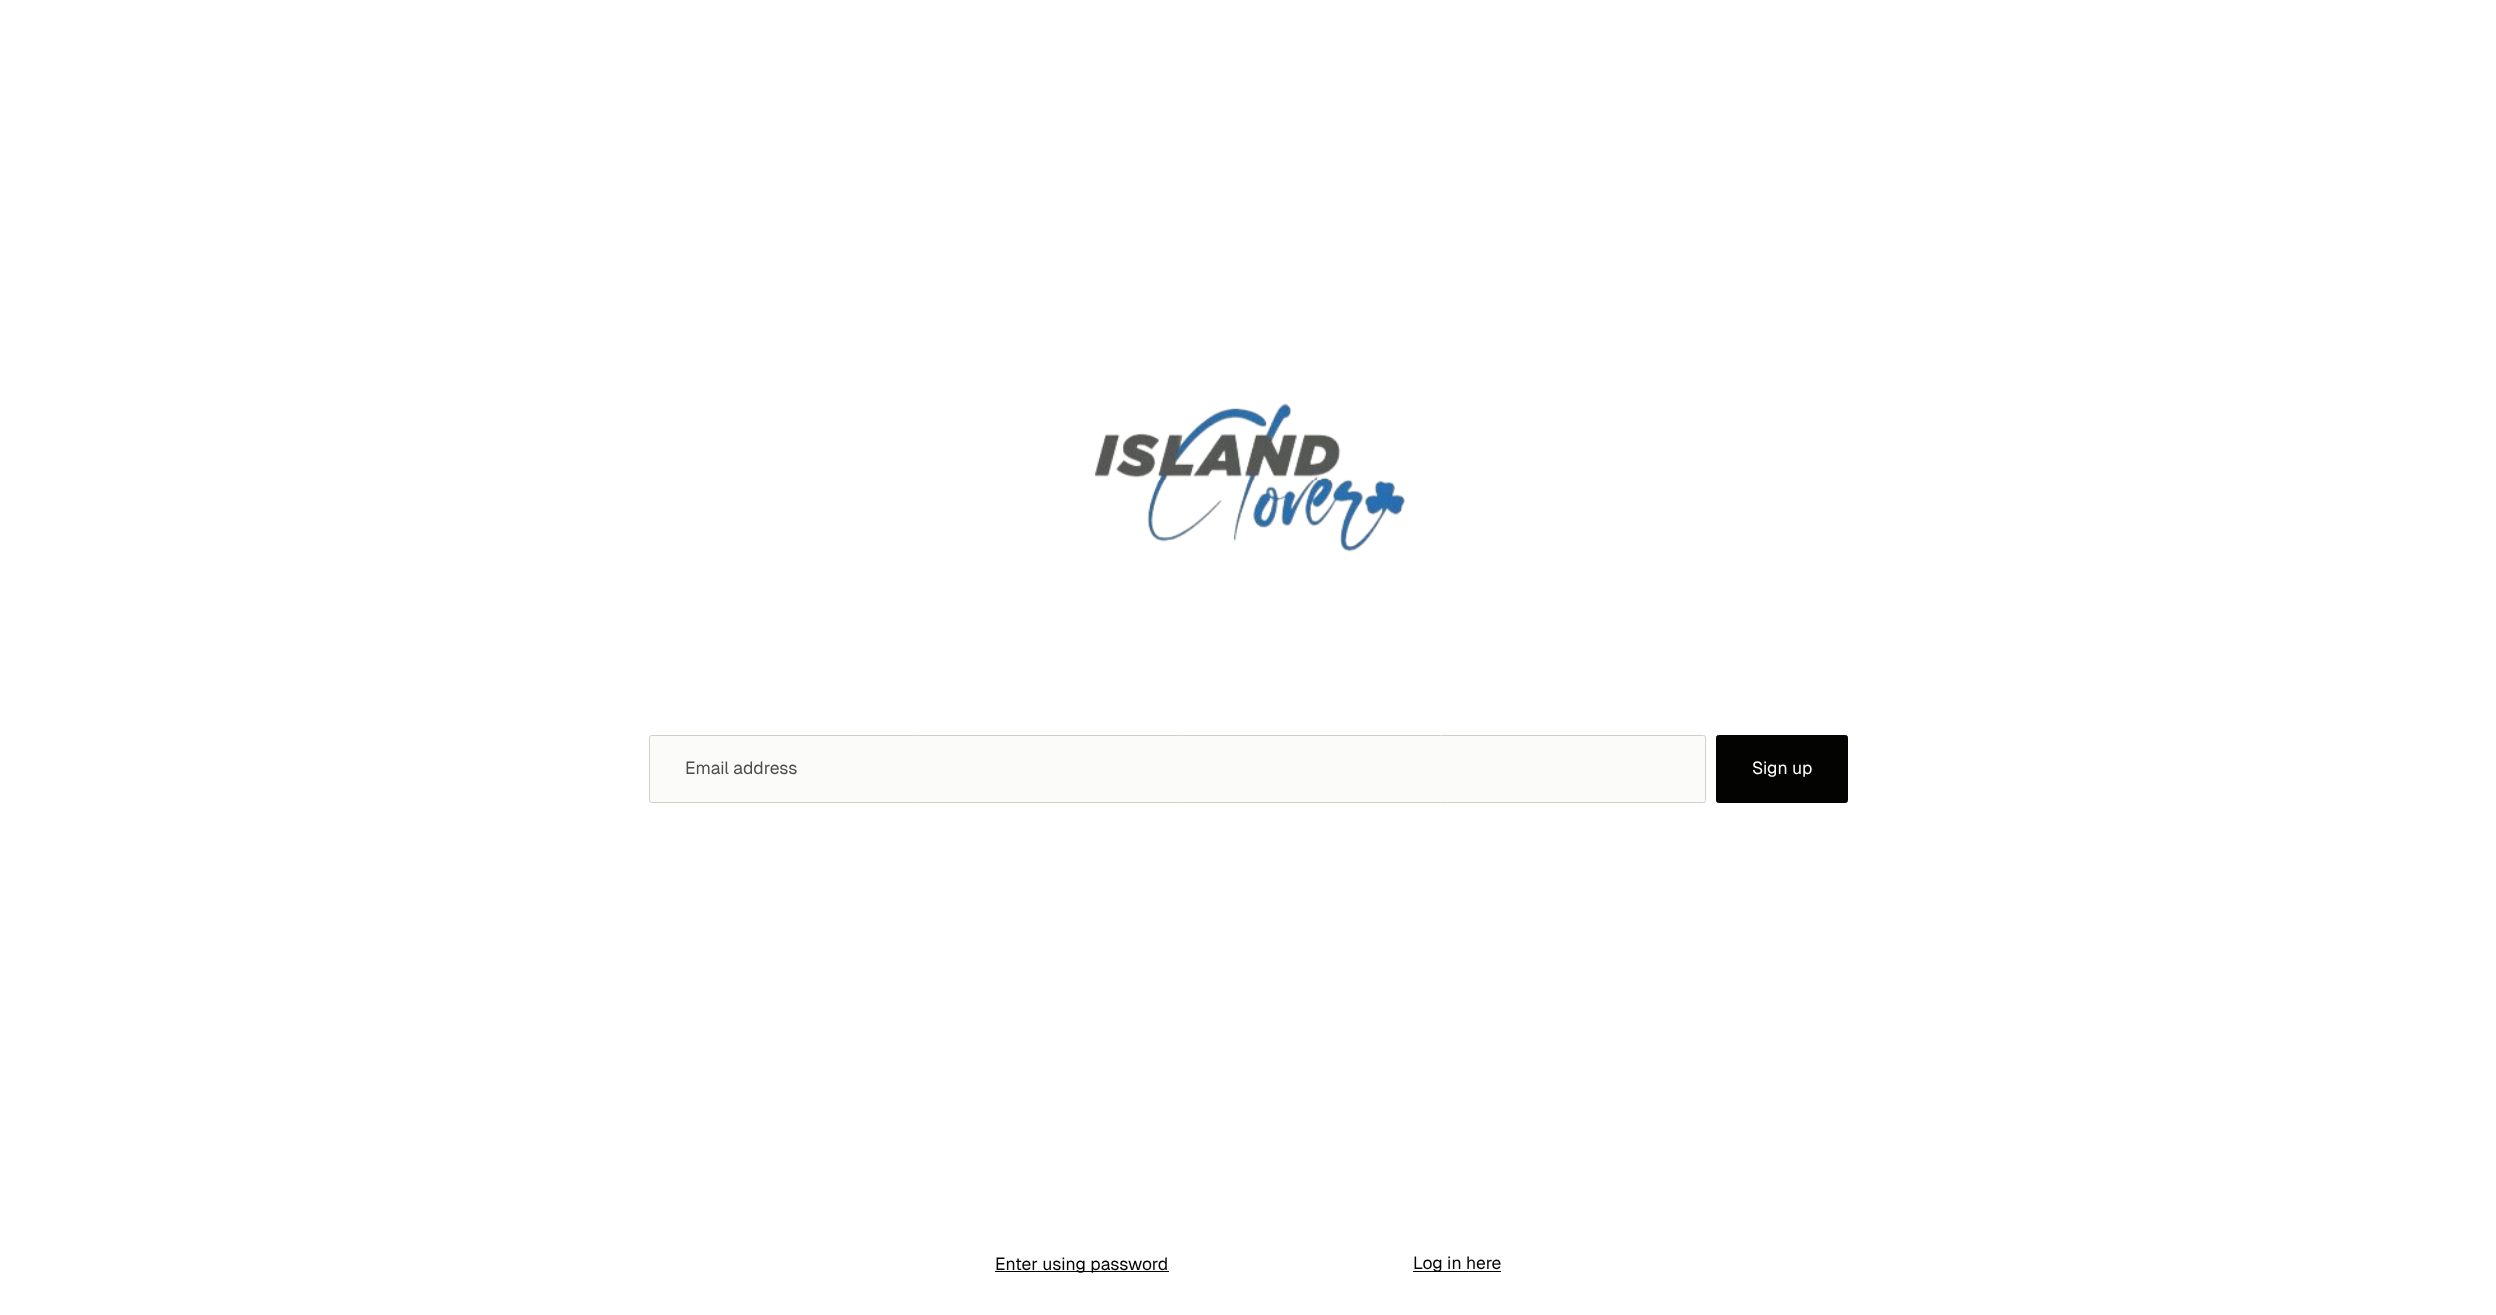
(async () => {
    const canvas = document.querySelector("canvas");
    canvas.width = 2496;
    canvas.height = 1315;
    const context = canvas.getContext("2d");
    context.miterLimit = 4;
    context.fontKerning = "normal";
    function write(s, x, y, font, color) {
        context.font = font;
        context.fillStyle = color;
        context.fillText(s, x, y);
    }
    function block(x, y, w, h, color) {
        context.fillStyle = color;
        context.fillRect(x, y, w, h);
    }
    async function photo(src, x, y, w, h) {
        const img = new Image();
        img.src = src;
        await img.decode();
        context.drawImage(img, x, y, w, h);
    }

    block(0, 0, 2496, 1315, "rgb(255, 255, 255)");
    await photo("media/1.png", 1094, 403, 311, 149);
    context.fillStyle = "rgb(251, 251, 250)";
    context.beginPath();
    context.roundRect(649.5, 735.5, 1056, 67, 2);
    context.fill();
    context.strokeStyle = "rgb(211, 206, 197)";
    context.stroke();
    write("Email address", 685, 774, "17.5px Geist", "rgb(77, 77, 76)");
    context.fillStyle = "rgb(3, 3, 2)";
    context.beginPath();
    context.roundRect(1716.5, 735.5, 131, 67, 2);
    context.fill();
    context.strokeStyle = "rgb(3, 3, 2)";
    context.stroke();
    write("Sign up", 1752, 774, "17.5px Geist", "rgb(255, 255, 255)");
    block(995, 1271, 174, 1, "rgb(3, 3, 2)");
    write("Enter using password", 995, 1270, "17.5px Geist", "rgb(3, 3, 2)");
    block(1413, 1271, 88, 1, "rgb(3, 3, 2)");
    write("Log in here", 1413, 1269, "17.5px Geist", "rgb(3, 3, 2)");
})();
